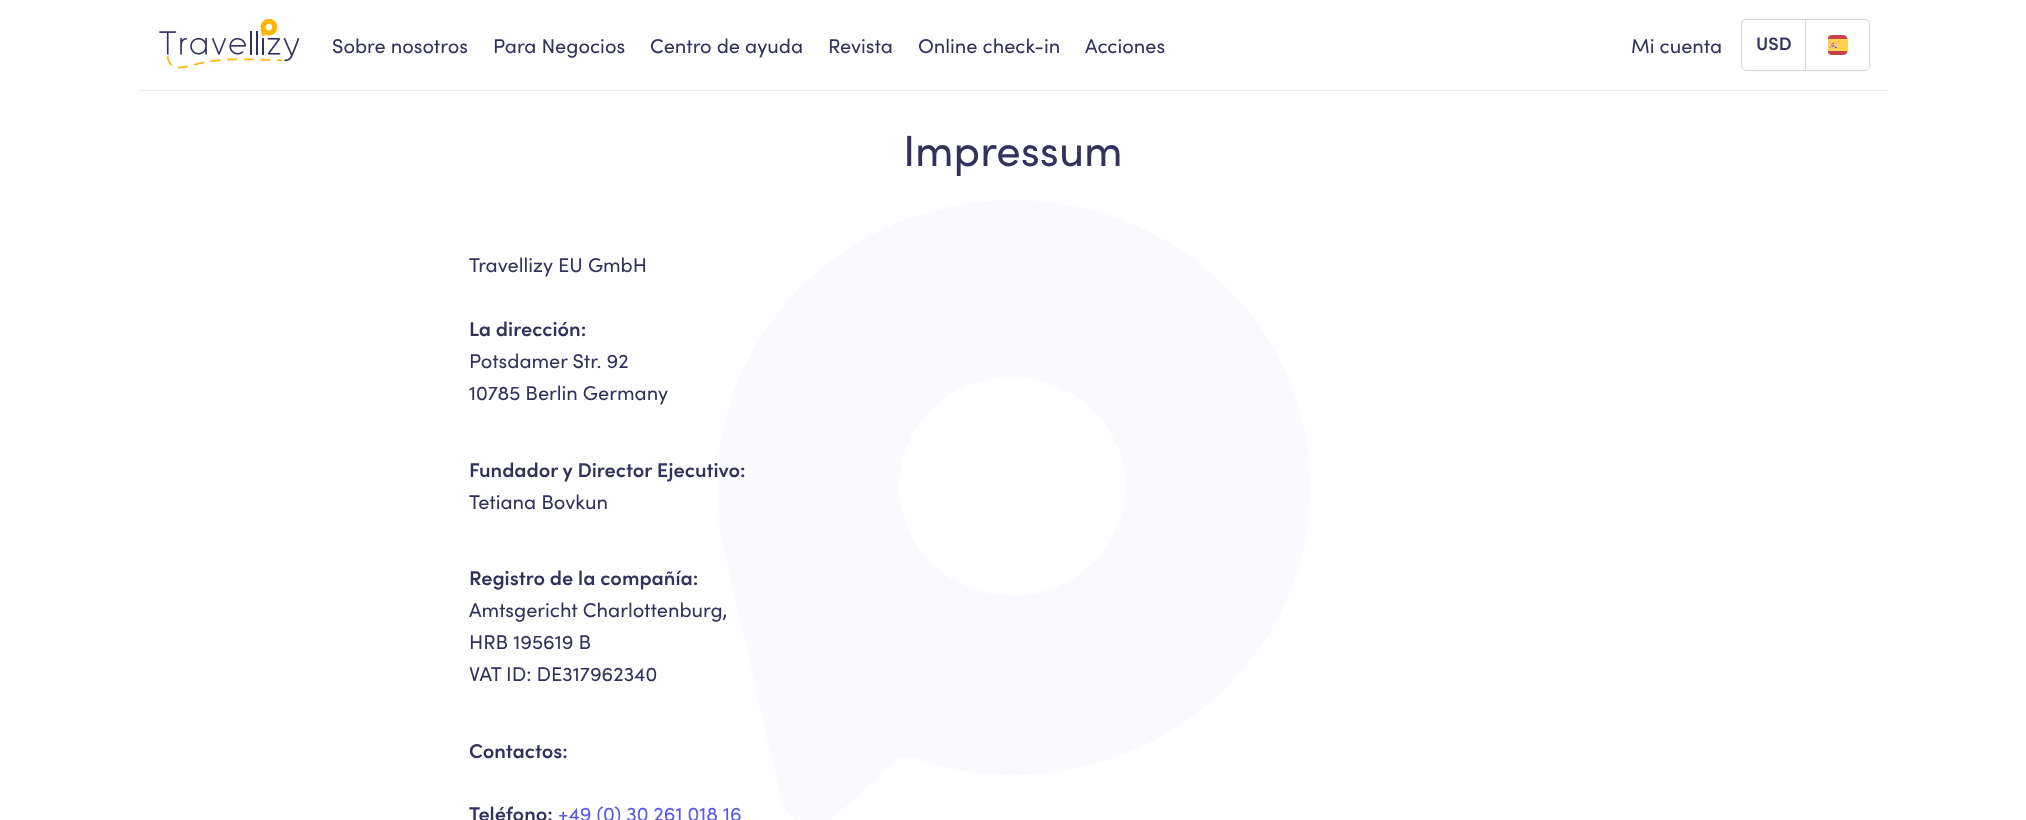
(async () => {
    const canvas = document.querySelector("canvas");
    canvas.width = 2026;
    canvas.height = 820;
    const context = canvas.getContext("2d");
    context.miterLimit = 4;
    context.fontKerning = "normal";
    function write(s, x, y, font, color) {
        context.font = font;
        context.fillStyle = color;
        context.fillText(s, x, y);
    }
    function block(x, y, w, h, color) {
        context.fillStyle = color;
        context.fillRect(x, y, w, h);
    }
    async function photo(src, x, y, w, h) {
        const img = new Image();
        img.src = src;
        await img.decode();
        context.drawImage(img, x, y, w, h);
    }

    block(0, 0, 2026, 820, "rgb(255, 255, 255)");
    block(139, 90, 1750, 1, "rgb(235, 235, 239)");
    await photo("media/1.png", 159, 19, 141, 50);
    write("Sobre nosotros", 332, 53, "20px Sofia", "rgb(50, 50, 93)");
    write("Para Negocios", 493, 53, "20px Sofia", "rgb(50, 50, 93)");
    write("Centro de ayuda", 650, 53, "20px Sofia", "rgb(50, 50, 93)");
    write("Revista", 828, 53, "20px Sofia", "rgb(50, 50, 93)");
    write("Online check-in", 918, 53, "20px Sofia", "rgb(50, 50, 93)");
    write("Acciones", 1085, 53, "20px Sofia", "rgb(50, 50, 93)");
    write("Mi cuenta", 1631, 53, "20px Sofia", "rgb(50, 50, 93)");
    context.beginPath();
    context.roundRect(1741.5, 19.5, 128, 51, 4.5);
    context.strokeStyle = "rgb(214, 214, 223)";
    context.stroke();
    block(1805, 20, 1, 50, "rgb(214, 214, 223)");
    write("USD", 1756, 50, "600 18px Sofia", "rgb(50, 50, 93)");
    await photo("media/2.png", 1828, 35, 20, 20);
    write("Impressum", 903, 166, "43.75px Sofia", "rgb(50, 50, 93)");
    write("Travellizy EU GmbH", 469, 272, "20px Sofia", "rgb(50, 50, 93)");
    write("La dirección:", 469, 336, "600 20px Sofia", "rgb(50, 50, 93)");
    write("Potsdamer Str. 92", 469, 368, "20px Sofia", "rgb(50, 50, 93)");
    write("10785 Berlin Germany", 469, 400, "20px Sofia", "rgb(50, 50, 93)");
    await photo("media/3.png", 718, 200, 592, 620);
    write("Fundador y Director Ejecutivo:", 469, 477, "600 20px Sofia", "rgb(50, 50, 93)");
    write("Tetiana Bovkun", 469, 509, "20px Sofia", "rgb(50, 50, 93)");
    write("Registro de la compañía:", 469, 585, "600 20px Sofia", "rgb(50, 50, 93)");
    write("Amtsgericht Charlottenburg,", 469, 617, "20px Sofia", "rgb(50, 50, 93)");
    write("HRB 195619 B", 469, 649, "20px Sofia", "rgb(50, 50, 93)");
    write("VAT ID: DE317962340", 469, 681, "20px Sofia", "rgb(50, 50, 93)");
    write("Contactos:", 469, 758, "600 20px Sofia", "rgb(50, 50, 93)");
    write("Teléfono:", 469, 821, "600 20px Sofia", "rgb(50, 50, 93)");
    write("+49 (0) 30 261 018 16", 558, 821, "20px Sofia", "rgb(89, 89, 228)");
})();
